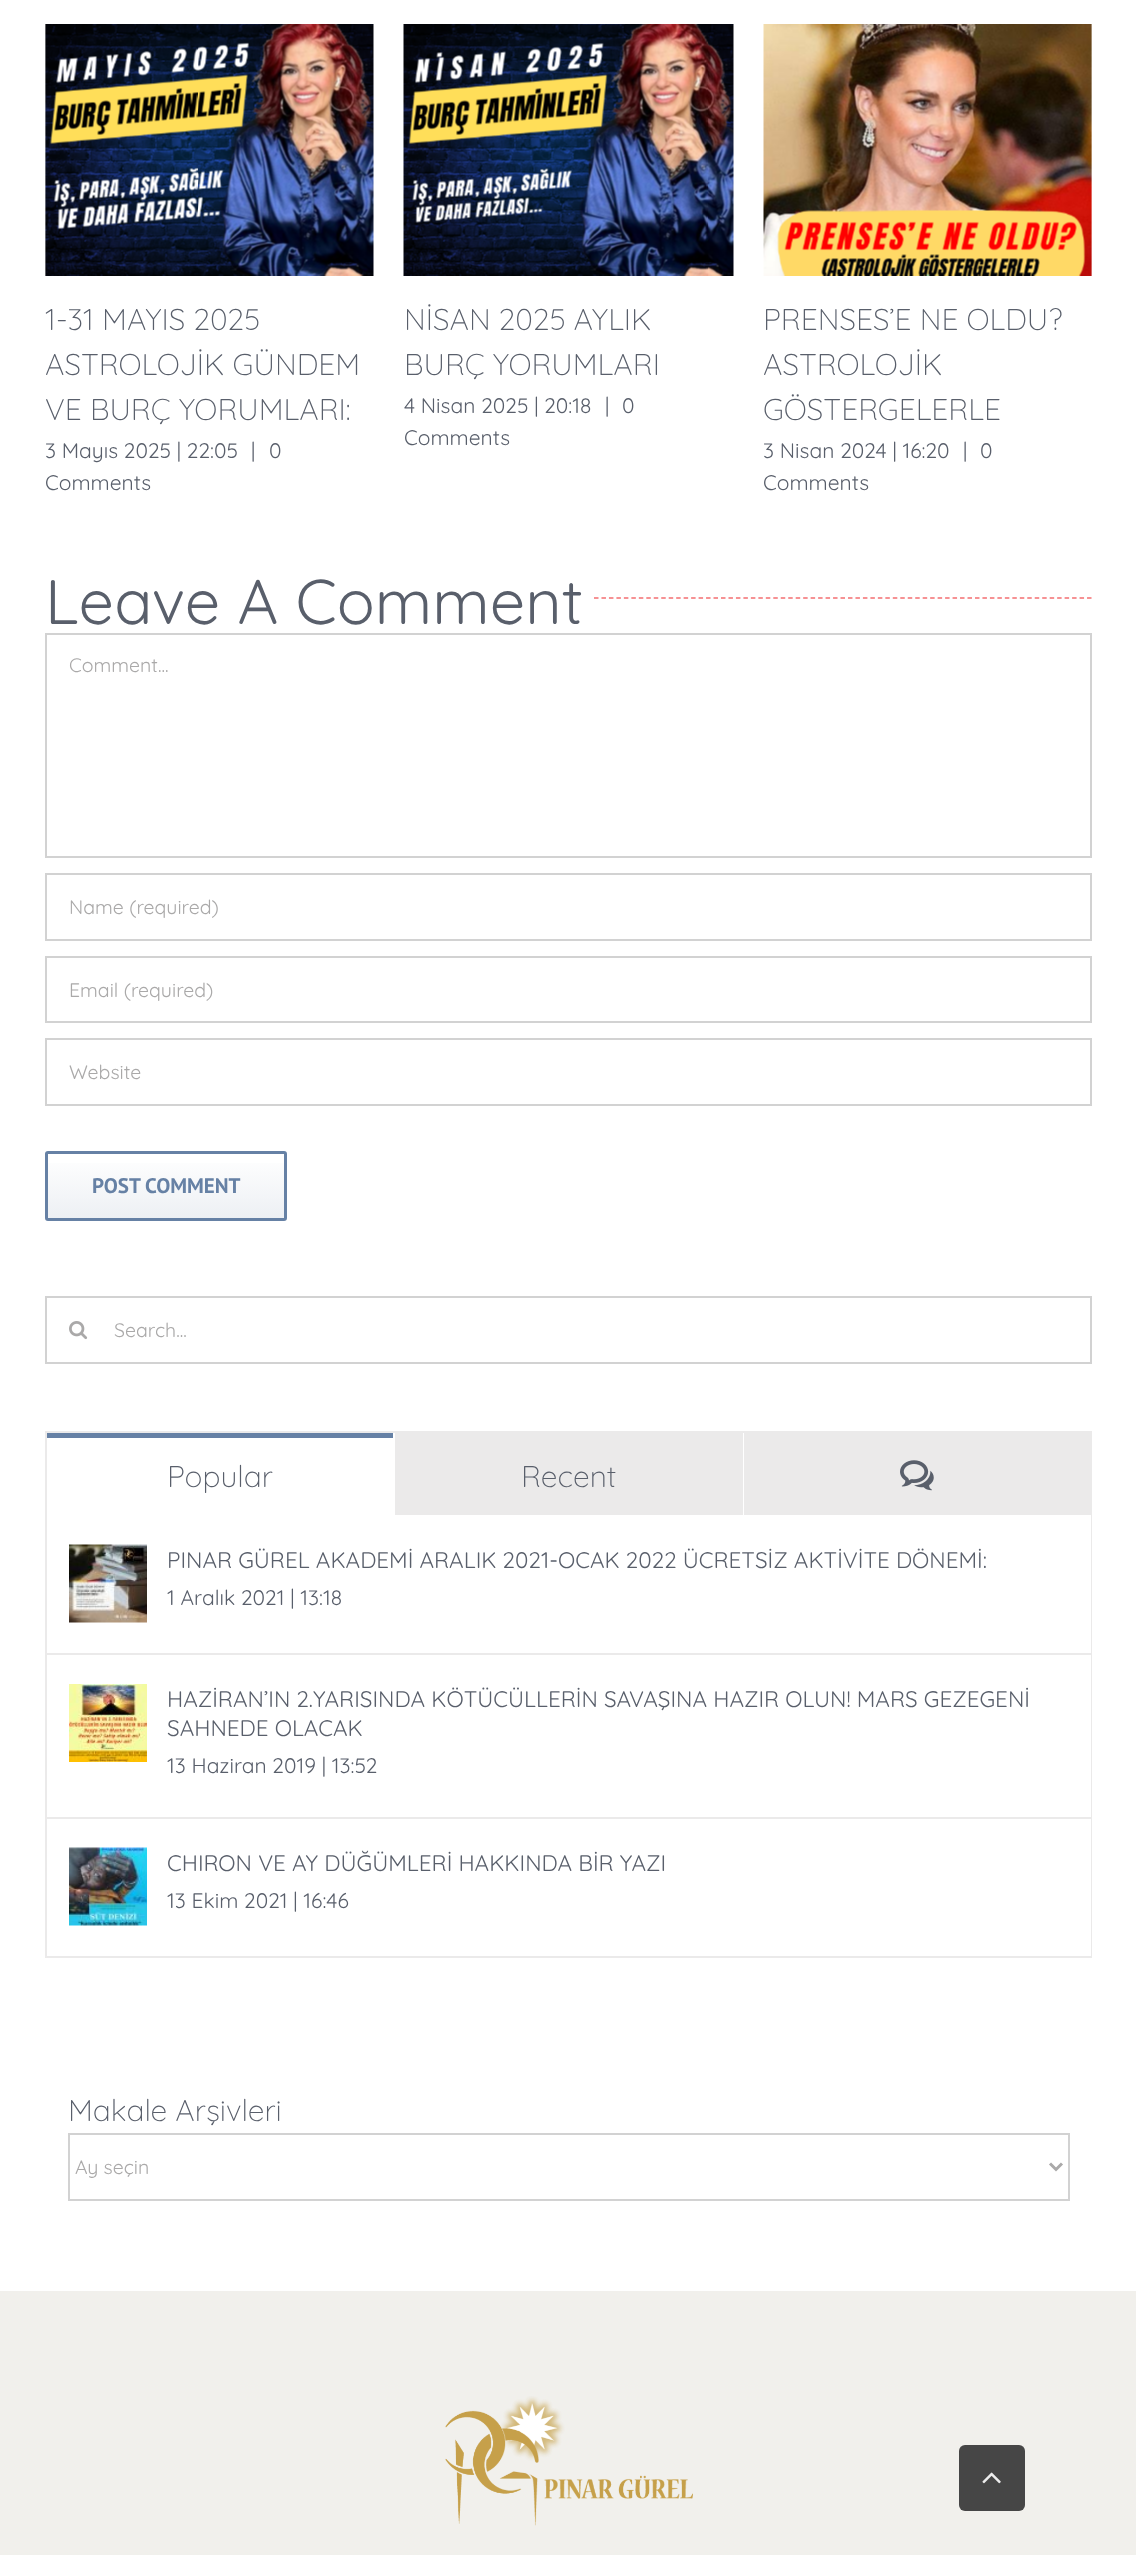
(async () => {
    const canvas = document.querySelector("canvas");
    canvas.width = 1136;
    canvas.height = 2555;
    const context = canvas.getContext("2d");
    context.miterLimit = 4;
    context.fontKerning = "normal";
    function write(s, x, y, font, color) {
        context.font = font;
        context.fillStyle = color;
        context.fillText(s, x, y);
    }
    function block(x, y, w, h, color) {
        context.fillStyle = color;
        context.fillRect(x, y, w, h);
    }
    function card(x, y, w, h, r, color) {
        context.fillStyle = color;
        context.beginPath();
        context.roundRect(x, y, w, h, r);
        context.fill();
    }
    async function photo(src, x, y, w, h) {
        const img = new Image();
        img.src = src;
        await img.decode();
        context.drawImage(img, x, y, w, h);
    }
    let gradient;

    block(0, 0, 1136, 2555, "rgb(255, 255, 255)");
    await photo("media/1.png", 45, 24, 329, 252);
    write("1-31 MAYIS 2025", 45, 330, "300 30px Quicksand", "rgb(89, 95, 107)");
    write("ASTROLOJİK GÜNDEM", 45, 375, "300 30px Quicksand", "rgb(89, 95, 107)");
    write("VE BURÇ YORUMLARI:", 45, 420, "300 30px Quicksand", "rgb(89, 95, 107)");
    write("3 Mayıs 2025 | 22:05", 45, 458, "21px Quicksand", "rgb(89, 95, 107)");
    write("|", 251, 458, "21px Quicksand", "rgb(89, 95, 107)");
    write("0", 269, 458, "21px Quicksand", "rgb(89, 95, 107)");
    write("Comments", 45, 490, "21px Quicksand", "rgb(89, 95, 107)");
    await photo("media/2.png", 403, 24, 331, 252);
    write("NİSAN 2025 AYLIK", 404, 330, "300 30px Quicksand", "rgb(89, 95, 107)");
    write("BURÇ YORUMLARI", 404, 375, "300 30px Quicksand", "rgb(89, 95, 107)");
    write("4 Nisan 2025 | 20:18", 404, 413, "21px Quicksand", "rgb(89, 95, 107)");
    write("|", 605, 413, "21px Quicksand", "rgb(89, 95, 107)");
    write("0", 622, 413, "21px Quicksand", "rgb(89, 95, 107)");
    write("Comments", 404, 445, "21px Quicksand", "rgb(89, 95, 107)");
    await photo("media/3.png", 763, 24, 329, 252);
    write("PRENSES’E NE OLDU?", 763, 330, "300 30px Quicksand", "rgb(89, 95, 107)");
    write("ASTROLOJİK", 763, 375, "300 30px Quicksand", "rgb(89, 95, 107)");
    write("GÖSTERGELERLE", 763, 420, "300 30px Quicksand", "rgb(89, 95, 107)");
    write("3 Nisan 2024 | 16:20", 763, 458, "21px Quicksand", "rgb(89, 95, 107)");
    write("|", 963, 458, "21px Quicksand", "rgb(89, 95, 107)");
    write("0", 980, 458, "21px Quicksand", "rgb(89, 95, 107)");
    write("Comments", 763, 490, "21px Quicksand", "rgb(89, 95, 107)");
    write("Leave A Comment", 45, 624, "63px Quicksand", "rgb(89, 95, 107)");
    context.beginPath();
    context.moveTo(594, 598);
    context.lineTo(1092, 598);
    context.strokeStyle = "rgb(244, 111, 114)";
    context.lineWidth = 1.5;
    context.setLineDash([4.5, 2.97]);
    context.stroke();
    context.strokeStyle = "rgb(210, 210, 210)";
    context.lineWidth = 2;
    context.setLineDash([]);
    context.strokeRect(46, 634, 1045, 223);
    write("Comment...", 69, 672, "19.5px Quicksand", "rgb(170, 169, 169)");
    context.strokeRect(46, 874, 1045, 66);
    write("Name (required)", 69, 914, "19.5px Quicksand", "rgb(170, 169, 169)");
    context.strokeRect(46, 957, 1045, 65);
    write("Email (required)", 69, 997, "19.5px Quicksand", "rgb(170, 169, 169)");
    context.strokeRect(46, 1039, 1045, 66);
    write("Website", 69, 1079, "19.5px Quicksand", "rgb(170, 169, 169)");
    gradient = context.createLinearGradient(166, 1154, 166, 1218);
    gradient.addColorStop(0, "rgb(255, 255, 255)");
    gradient.addColorStop(1, "rgb(237, 240, 244)");
    context.fillStyle = gradient;
    context.fillRect(48, 1163, 236, 55);
    context.beginPath();
    context.roundRect(46.5, 1152.5, 239, 67, 1.5);
    context.strokeStyle = "rgb(102, 129, 165)";
    context.lineWidth = 3;
    context.stroke();
    write("POST COMMENT", 92, 1193, "bold 21px PT Sans", "rgb(102, 129, 165)");
    context.strokeStyle = "rgb(210, 210, 210)";
    context.lineWidth = 2;
    context.strokeRect(46, 1297, 1045, 66);
    await photo("media/4.png", 69, 1321, 19, 19);
    write("Search...", 114, 1337, "19.5px Quicksand", "rgb(170, 169, 169)");
    context.strokeStyle = "rgb(235, 234, 234)";
    context.strokeRect(46, 1432, 1045, 525);
    block(47, 1433, 346, 5, "rgb(102, 129, 165)");
    write("Popular", 167, 1487, "300 30px Quicksand", "rgb(89, 95, 107)");
    block(395, 1433, 348, 82, "rgb(235, 234, 234)");
    write("Recent", 521, 1487, "300 30px Quicksand", "rgb(89, 95, 107)");
    block(744, 1433, 346, 82, "rgb(235, 234, 234)");
    await photo("media/5.png", 900, 1460, 34, 31);
    block(1090, 1515, 1, 441, "rgb(255, 255, 255)");
    block(47, 1653, 1044, 2, "rgb(235, 234, 234)");
    await photo("media/6.png", 69, 1544, 78, 79);
    write("PINAR GÜREL AKADEMİ ARALIK 2021-OCAK 2022 ÜCRETSİZ AKTİVİTE DÖNEMİ:", 167, 1568, "22.5px Quicksand", "rgb(89, 95, 107)");
    write("1 Aralık 2021 | 13:18", 167, 1605, "21px Quicksand", "rgb(89, 95, 107)");
    block(47, 1817, 1044, 2, "rgb(235, 234, 234)");
    await photo("media/7.png", 69, 1684, 78, 78);
    write("HAZİRAN’IN 2.YARISINDA KÖTÜCÜLLERİN SAVAŞINA HAZIR OLUN! MARS GEZEGENİ", 167, 1707, "22.5px Quicksand", "rgb(89, 95, 107)");
    write("SAHNEDE OLACAK", 167, 1736, "22.5px Quicksand", "rgb(89, 95, 107)");
    write("13 Haziran 2019 | 13:52", 167, 1773, "21px Quicksand", "rgb(89, 95, 107)");
    await photo("media/8.png", 69, 1847, 78, 79);
    write("CHIRON VE AY DÜĞÜMLERİ HAKKINDA BİR YAZI", 167, 1871, "22.5px Quicksand", "rgb(89, 95, 107)");
    write("13 Ekim 2021 | 16:46", 167, 1908, "21px Quicksand", "rgb(89, 95, 107)");
    write("Makale Arşivleri", 68, 2121, "300 30px Quicksand", "rgb(89, 95, 107)");
    context.strokeStyle = "rgb(210, 210, 210)";
    context.strokeRect(69, 2134, 1000, 66);
    context.beginPath();
    context.moveTo(1050, 2163.5);
    context.lineTo(1056, 2169.5);
    context.lineTo(1062, 2163.5);
    context.strokeStyle = "rgb(170, 169, 169)";
    context.lineWidth = 3;
    context.stroke();
    write("Ay seçin", 75, 2174, "19.5px Quicksand", "rgb(170, 169, 169)");
    block(0, 2291, 1136, 264, "rgb(241, 240, 236)");
    await photo("media/9.png", 445, 2396, 248, 130);
    card(959, 2445, 66, 66, 6, "rgb(70, 70, 70)");
    await photo("media/10.png", 982, 2472, 19, 12);
})();
